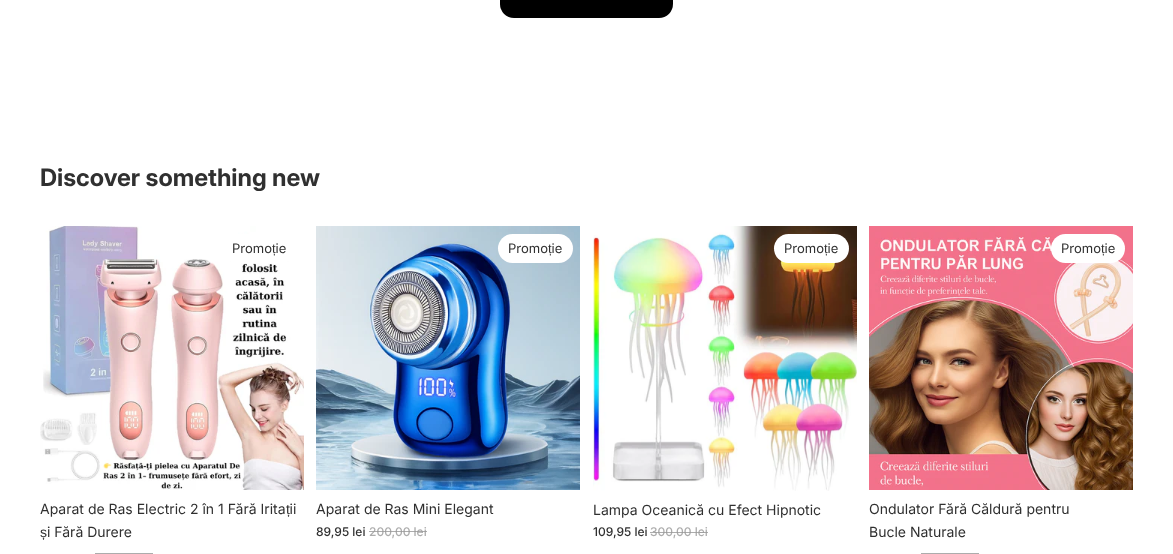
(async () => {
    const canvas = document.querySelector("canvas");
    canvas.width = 1173;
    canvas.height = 554;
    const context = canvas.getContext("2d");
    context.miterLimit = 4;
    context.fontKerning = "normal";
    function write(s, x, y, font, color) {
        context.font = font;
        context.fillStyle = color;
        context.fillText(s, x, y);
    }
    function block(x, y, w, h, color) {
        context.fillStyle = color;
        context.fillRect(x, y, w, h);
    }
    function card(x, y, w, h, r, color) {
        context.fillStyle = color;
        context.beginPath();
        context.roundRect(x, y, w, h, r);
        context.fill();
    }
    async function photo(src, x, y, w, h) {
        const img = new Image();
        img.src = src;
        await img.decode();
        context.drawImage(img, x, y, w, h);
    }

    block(0, 0, 1173, 554, "rgb(255, 255, 255)");
    card(500, -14, 173, 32, 14, "rgb(0, 0, 0)");
    write("Discover something new", 40, 186, "bold 24px Inter", "rgb(48, 48, 48)");
    await photo("media/1.png", 40, 226, 264, 264);
    card(222, 234, 74, 29, 14.5, "rgb(255, 255, 255)");
    write("Promo ie", 232, 253, "13px Inter", "rgb(48, 48, 48)");
    write("ț", 272, 253, "13px Liberation Sans", "rgb(48, 48, 48)");
    write("Aparat de Ras Electric 2 în 1 Fără Irita ii", 40, 514, "14px Inter", "rgb(48, 48, 48)");
    write("ț", 286, 514, "14px Liberation Sans", "rgb(48, 48, 48)");
    write("ș", 40, 537, "14px Liberation Sans", "rgb(48, 48, 48)");
    write("i Fără Durere", 47, 537, "14px Inter", "rgb(48, 48, 48)");
    block(95, 553, 58, 1, "rgba(153, 153, 153, 0.81)");
    await photo("media/2.png", 316, 226, 264, 264);
    card(498, 234, 75, 29, 14.5, "rgb(255, 255, 255)");
    write("Promo ie", 508, 253, "13px Inter", "rgb(48, 48, 48)");
    write("ț", 548, 253, "13px Liberation Sans", "rgb(48, 48, 48)");
    write("Aparat de Ras Mini Elegant", 316, 514, "14px Inter", "rgb(48, 48, 48)");
    write("89,95 lei", 316, 536, "500 12px Inter", "rgb(48, 48, 48)");
    write("200,00 lei", 369, 536, "500 12px Inter", "rgb(172, 172, 172)");
    block(369, 531, 58, 1, "rgba(153, 153, 153, 0.81)");
    await photo("media/3.png", 593, 226, 264, 265);
    card(774, 234, 75, 29, 14.5, "rgb(255, 255, 255)");
    write("Promo ie", 784, 253, "13px Inter", "rgb(48, 48, 48)");
    write("ț", 824, 253, "13px Liberation Sans", "rgb(48, 48, 48)");
    write("Lampa Oceanică cu Efect Hipnotic", 593, 515, "14px Inter", "rgb(48, 48, 48)");
    write("109,95 lei", 593, 536, "500 12px Inter", "rgb(48, 48, 48)");
    write("300,00 lei", 650, 536, "500 12px Inter", "rgb(172, 172, 172)");
    block(650, 532, 58, 1, "rgba(153, 153, 153, 0.81)");
    await photo("media/4.png", 869, 226, 264, 264);
    card(1051, 234, 74, 29, 14.5, "rgb(255, 255, 255)");
    write("Promo ie", 1061, 253, "13px Inter", "rgb(48, 48, 48)");
    write("ț", 1101, 253, "13px Liberation Sans", "rgb(48, 48, 48)");
    write("Ondulator Fără Căldură pentru", 869, 514, "14px Inter", "rgb(48, 48, 48)");
    write("Bucle Naturale", 869, 537, "14px Inter", "rgb(48, 48, 48)");
    block(921, 553, 58, 1, "rgba(153, 153, 153, 0.81)");
})();
